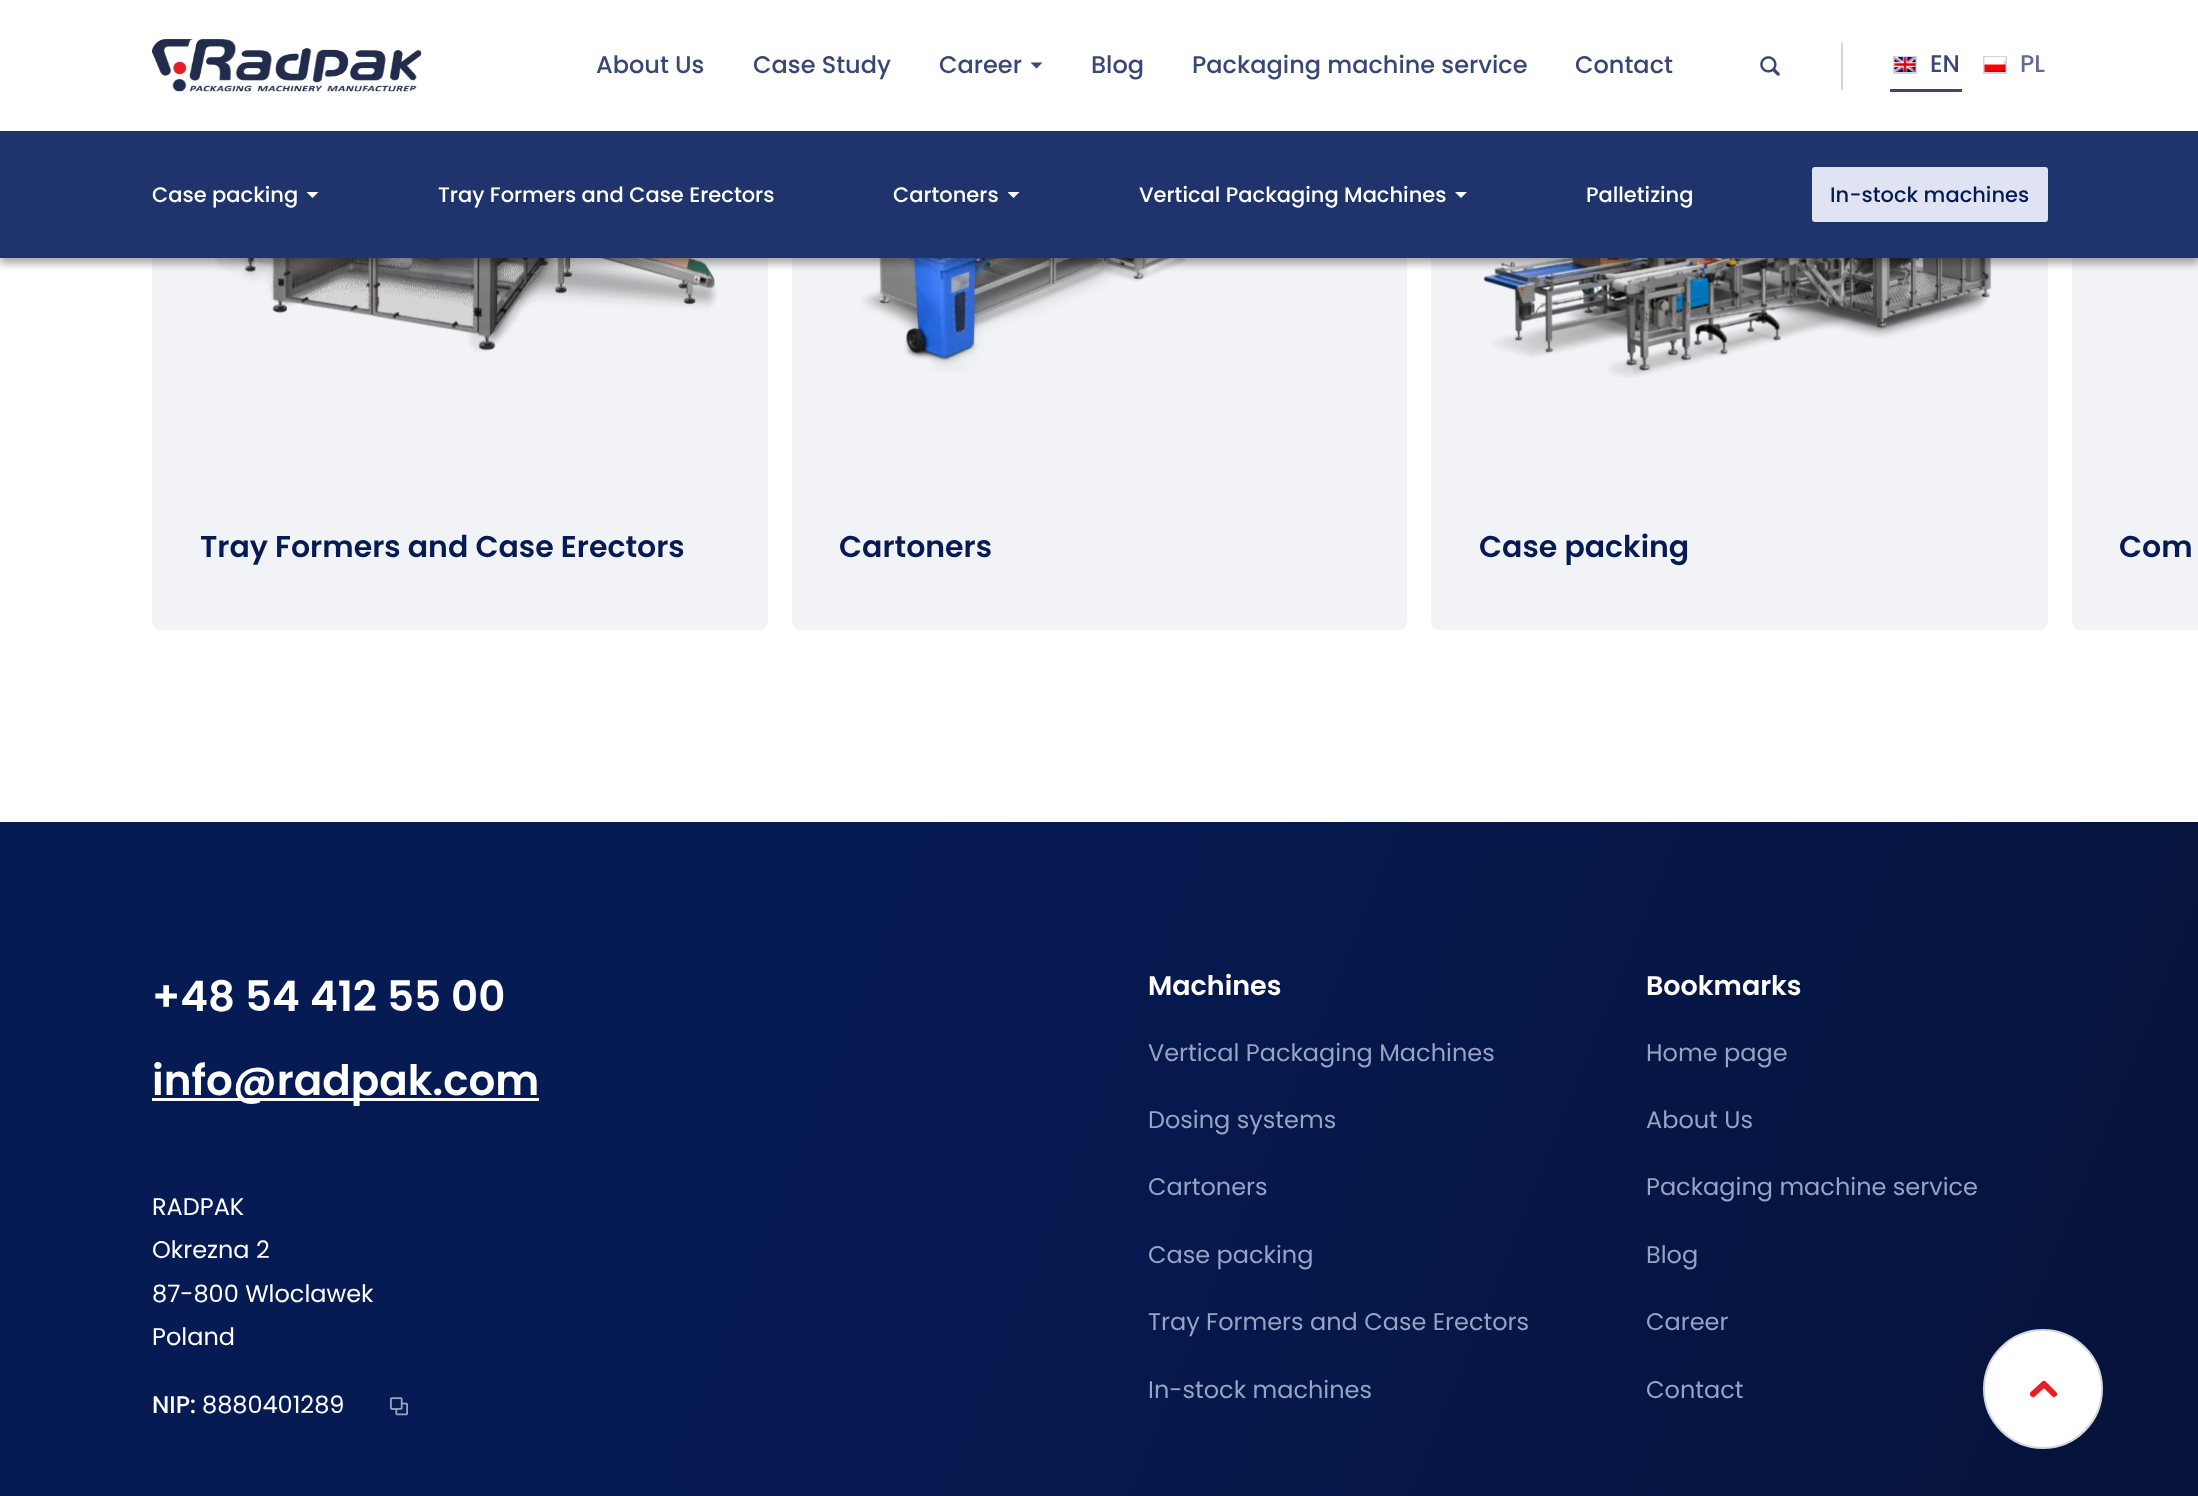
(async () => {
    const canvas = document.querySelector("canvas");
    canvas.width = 2198;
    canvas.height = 1496;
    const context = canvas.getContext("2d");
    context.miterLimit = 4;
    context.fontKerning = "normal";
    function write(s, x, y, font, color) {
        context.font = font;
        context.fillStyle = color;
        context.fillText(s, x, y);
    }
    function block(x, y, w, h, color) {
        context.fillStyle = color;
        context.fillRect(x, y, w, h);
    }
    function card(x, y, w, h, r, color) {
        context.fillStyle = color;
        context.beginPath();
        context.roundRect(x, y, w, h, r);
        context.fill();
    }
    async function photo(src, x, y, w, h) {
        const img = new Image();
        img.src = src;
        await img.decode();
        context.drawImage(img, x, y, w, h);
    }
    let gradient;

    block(0, 0, 2198, 1496, "rgb(255, 255, 255)");
    card(152, -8, 616, 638, 8, "rgb(242, 243, 246)");
    await photo("media/5.png", 215, 258, 502, 94);
    card(792, -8, 615, 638, 8, "rgb(242, 243, 246)");
    await photo("media/6.png", 861, 258, 326, 114);
    card(1431, -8, 617, 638, 8, "rgb(242, 243, 246)");
    await photo("media/7.png", 1483, 258, 509, 120);
    context.beginPath();
    context.moveTo(2080, -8);
    context.lineTo(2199, -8);
    context.lineTo(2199, 630);
    context.lineTo(2080, 630);
    context.bezierCurveTo(2075.5, 630, 2072, 626.5, 2072, 622);
    context.lineTo(2072, 0);
    context.bezierCurveTo(2072, -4.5, 2075.5, -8, 2080, -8);
    context.closePath();
    context.fill();
    context.fillStyle = "rgba(0, 0, 0, 0.23)";
    context.filter = "blur(4.5px)";
    context.beginPath();
    context.rect(0, 5, 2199, 258);
    context.fill();
    context.filter = "none";
    context.fillStyle = "rgba(0, 0, 0, 0.16)";
    context.filter = "blur(4.5px)";
    context.beginPath();
    context.rect(0, 5, 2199, 258);
    context.fill();
    context.filter = "none";
    block(0, 0, 2198, 131, "rgb(255, 255, 255)");
    await photo("media/1.png", 151, 39, 271, 53);
    write("About Us", 596, 73, "500 24px Poppins", "rgb(56, 71, 118)");
    write("Case Study", 753, 73, "500 24px Poppins", "rgb(56, 71, 118)");
    write("Career", 939, 73, "500 24px Poppins", "rgb(56, 71, 118)");
    context.beginPath();
    context.moveTo(1030.5, 62.5);
    context.lineTo(1042.5, 62.5);
    context.lineTo(1036.5, 68.5);
    context.closePath();
    context.fill();
    write("Blog", 1091, 73, "500 24px Poppins", "rgb(56, 71, 118)");
    write("Packaging machine service", 1192, 73, "500 24px Poppins", "rgb(56, 71, 118)");
    write("Contact", 1575, 73, "500 24px Poppins", "rgb(56, 71, 118)");
    await photo("media/2.png", 1760, 56, 20, 20);
    block(1841, 44, 2, 46, "rgb(209, 213, 224)");
    block(1841, 42, 2, 2, "rgb(229, 231, 235)");
    block(1890, 89, 72, 3, "rgb(56, 71, 118)");
    context.strokeStyle = "rgb(209, 213, 224)";
    context.lineWidth = 2;
    context.strokeRect(1894, 57, 22, 16);
    await photo("media/3.png", 1894, 57, 22, 15);
    write("EN", 1930, 72, "500 24px Poppins", "rgb(56, 71, 118)");
    context.strokeRect(1984, 57, 22, 16);
    await photo("media/4.png", 1984, 57, 22, 15);
    write("PL", 2020, 72, "500 24px Poppins", "rgb(96, 108, 145)");
    block(0, 131, 2198, 127, "rgb(31, 51, 109)");
    write("Case packing", 152, 202, "500 21px Poppins", "rgb(255, 255, 255)");
    context.beginPath();
    context.moveTo(306.5, 192);
    context.lineTo(318.5, 192);
    context.lineTo(312.5, 198);
    context.closePath();
    context.fill();
    write("Tray Formers and Case Erectors", 438, 202, "500 21px Poppins", "rgb(255, 255, 255)");
    write("Cartoners", 893, 202, "500 21px Poppins", "rgb(255, 255, 255)");
    context.beginPath();
    context.moveTo(1007.5, 192);
    context.lineTo(1019.5, 192);
    context.lineTo(1013.5, 198);
    context.closePath();
    context.fill();
    write("Vertical Packaging Machines", 1139, 202, "500 21px Poppins", "rgb(255, 255, 255)");
    context.beginPath();
    context.moveTo(1455, 192);
    context.lineTo(1467, 192);
    context.lineTo(1461, 198);
    context.closePath();
    context.fill();
    write("Palletizing", 1586, 202, "500 21px Poppins", "rgb(255, 255, 255)");
    card(1812, 167, 236, 55, 3, "rgb(224, 227, 242)");
    write("In-stock machines", 1830, 202, "500 21px Poppins", "rgb(6, 26, 84)");
    write("Tray Formers and Case Erectors", 200, 557, "600 30px Poppins", "rgb(6, 26, 84)");
    write("Cartoners", 839, 557, "600 30px Poppins", "rgb(6, 26, 84)");
    write("Case packing", 1479, 557, "600 30px Poppins", "rgb(6, 26, 84)");
    write("Com", 2119, 557, "600 30px Poppins", "rgb(6, 26, 84)");
    gradient = context.createLinearGradient(-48, 942, 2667, 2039);
    gradient.addColorStop(0.29, "rgb(6, 26, 84)");
    gradient.addColorStop(1, "rgb(5, 15, 45)");
    context.fillStyle = gradient;
    context.fillRect(0, 822, 2198, 674);
    write("+48 54 412 55 00", 152, 1011, "600 42px Poppins", "rgb(255, 255, 255)");
    block(152, 1098, 387, 3, "rgb(255, 255, 255)");
    write("info@radpak.com", 152, 1095, "600 42px Poppins", "rgb(255, 255, 255)");
    write("RADPAK", 152, 1215, "24px Poppins", "rgb(255, 255, 255)");
    write("Okrezna 2", 152, 1258, "24px Poppins", "rgb(255, 255, 255)");
    write("87-800 Wloclawek", 152, 1302, "24px Poppins", "rgb(255, 255, 255)");
    write("Poland", 152, 1345, "24px Poppins", "rgb(255, 255, 255)");
    write("NIP:", 152, 1413, "500 24px Poppins", "rgb(255, 255, 255)");
    write("8880401289", 202, 1413, "24px Poppins", "rgb(255, 255, 255)");
    await photo("media/8.png", 390, 1397, 18, 19);
    write("Machines", 1148, 995, "600 27px Poppins", "rgb(255, 255, 255)");
    write("Vertical Packaging Machines", 1148, 1061, "24px Poppins", "rgb(151, 163, 196)");
    write("Dosing systems", 1148, 1128, "24px Poppins", "rgb(151, 163, 196)");
    write("Cartoners", 1148, 1195, "24px Poppins", "rgb(151, 163, 196)");
    write("Case packing", 1148, 1263, "24px Poppins", "rgb(151, 163, 196)");
    write("Tray Formers and Case Erectors", 1148, 1330, "24px Poppins", "rgb(151, 163, 196)");
    write("In-stock machines", 1148, 1398, "24px Poppins", "rgb(151, 163, 196)");
    write("Bookmarks", 1646, 995, "600 27px Poppins", "rgb(255, 255, 255)");
    write("Home page", 1646, 1061, "24px Poppins", "rgb(151, 163, 196)");
    write("About Us", 1646, 1128, "24px Poppins", "rgb(151, 163, 196)");
    write("Packaging machine service", 1646, 1195, "24px Poppins", "rgb(151, 163, 196)");
    write("Blog", 1646, 1263, "24px Poppins", "rgb(151, 163, 196)");
    write("Career", 1646, 1330, "24px Poppins", "rgb(151, 163, 196)");
    write("Contact", 1646, 1398, "24px Poppins", "rgb(151, 163, 196)");
    context.fillStyle = "rgb(255, 255, 255)";
    context.beginPath();
    context.arc(2043, 1389, 59, 0, Math.PI * 2);
    context.fill();
    context.stroke();
    context.beginPath();
    context.moveTo(2033, 1394);
    context.lineTo(2044, 1384);
    context.lineTo(2054, 1394);
    context.strokeStyle = "rgb(237, 28, 36)";
    context.lineWidth = 6;
    context.lineCap = "round";
    context.lineJoin = "round";
    context.stroke();
})();
